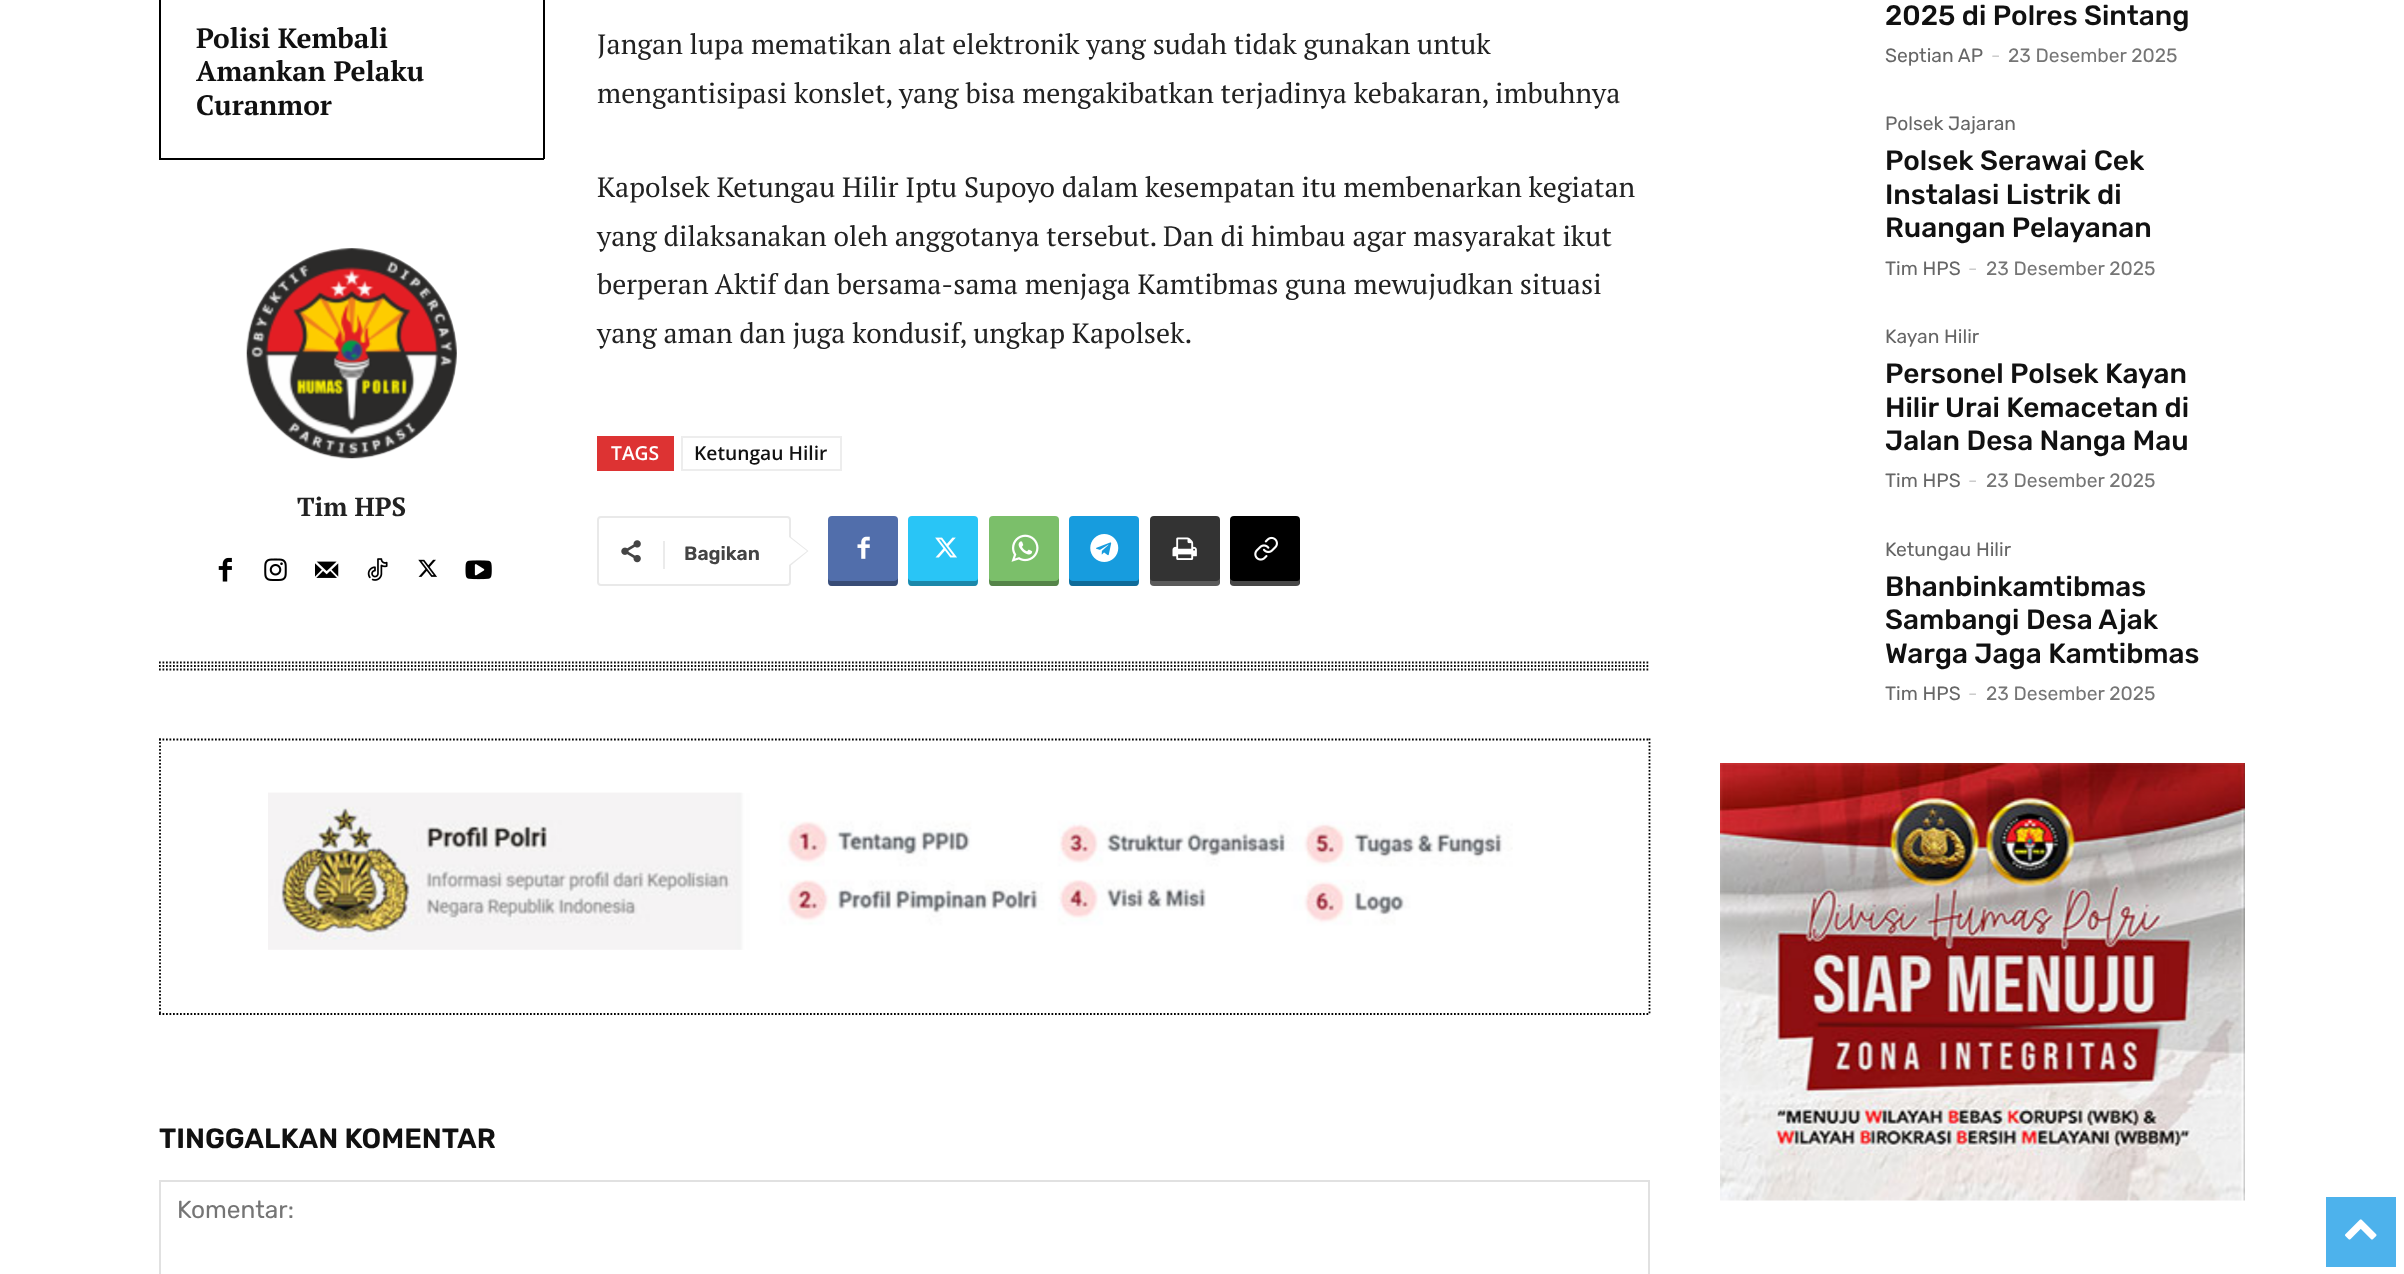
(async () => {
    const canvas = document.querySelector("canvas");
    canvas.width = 2404;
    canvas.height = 1274;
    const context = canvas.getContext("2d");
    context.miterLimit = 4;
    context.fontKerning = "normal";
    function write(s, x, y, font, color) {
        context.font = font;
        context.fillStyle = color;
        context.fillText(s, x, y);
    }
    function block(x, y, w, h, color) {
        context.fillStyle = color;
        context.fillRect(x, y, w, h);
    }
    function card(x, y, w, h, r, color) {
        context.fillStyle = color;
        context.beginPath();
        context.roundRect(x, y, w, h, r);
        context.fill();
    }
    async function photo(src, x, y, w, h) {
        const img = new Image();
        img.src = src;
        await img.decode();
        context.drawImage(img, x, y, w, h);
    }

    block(0, 0, 2404, 1274, "rgb(255, 255, 255)");
    block(543, 0, 2, 159, "rgb(0, 0, 0)");
    block(159, 158, 385, 2, "rgb(0, 0, 0)");
    block(159, 0, 2, 159, "rgb(0, 0, 0)");
    write("Polisi Kembali", 196, 48, "bold 28px PT Serif", "rgb(17, 17, 17)");
    write("Amankan Pelaku", 196, 81, "bold 28px PT Serif", "rgb(17, 17, 17)");
    write("Curanmor", 196, 115, "bold 28px PT Serif", "rgb(17, 17, 17)");
    await photo("media/1.png", 246, 248, 211, 211);
    write("Tim HPS", 297, 516, "bold 26.25px PT Serif", "rgb(34, 34, 34)");
    await photo("media/2.png", 218, 557, 14, 25);
    await photo("media/3.png", 264, 558, 23, 23);
    await photo("media/4.png", 315, 561, 24, 17);
    await photo("media/5.png", 367, 558, 21, 23);
    await photo("media/6.png", 418, 559, 19, 18);
    await photo("media/7.png", 465, 560, 27, 20);
    write("Jangan lupa mematikan alat elektronik yang sudah tidak gunakan untuk", 597, 54, "28px PT Serif", "rgb(34, 34, 34)");
    write("mengantisipasi konslet, yang bisa mengakibatkan terjadinya kebakaran, imbuhnya", 597, 103, "28px PT Serif", "rgb(34, 34, 34)");
    write("Kapolsek Ketungau Hilir Iptu Supoyo dalam kesempatan itu membenarkan kegiatan", 597, 197, "28px PT Serif", "rgb(34, 34, 34)");
    write("yang dilaksanakan oleh anggotanya tersebut. Dan di himbau agar masyarakat ikut", 597, 246, "28px PT Serif", "rgb(34, 34, 34)");
    write("berperan Aktif dan bersama-sama menjaga Kamtibmas guna mewujudkan situasi", 597, 294, "28px PT Serif", "rgb(34, 34, 34)");
    write("yang aman dan juga kondusif, ungkap Kapolsek.", 597, 343, "28px PT Serif", "rgb(34, 34, 34)");
    block(597, 436, 77, 35, "rgb(221, 51, 51)");
    write("TAGS", 611, 460, "600 19.25px Open Sans", "rgb(255, 255, 255)");
    context.strokeStyle = "rgb(237, 237, 237)";
    context.lineWidth = 2;
    context.strokeRect(682, 437, 159, 33);
    write("Ketungau Hilir", 694, 460, "600 19.25px Open Sans", "rgb(17, 17, 17)");
    context.beginPath();
    context.roundRect(598, 517, 192, 68, 3);
    context.strokeStyle = "rgb(233, 233, 233)";
    context.stroke();
    context.fillStyle = "rgb(233, 233, 233)";
    context.beginPath();
    context.moveTo(789, 567);
    context.lineTo(789, 535.5);
    context.lineTo(808.5, 551);
    context.closePath();
    context.fill();
    await photo("media/8.png", 621, 540, 20, 23);
    block(663, 541, 2, 28, "rgb(235, 235, 235)");
    write("Bagikan", 684, 560, "600 19.25px Rubik", "rgb(68, 68, 68)");
    context.fillStyle = "rgb(255, 255, 255)";
    context.beginPath();
    context.moveTo(789, 565);
    context.lineTo(789, 537);
    context.lineTo(807, 551);
    context.closePath();
    context.fill();
    card(828, 516, 70, 70, 4, "rgb(81, 110, 171)");
    context.save();
    context.beginPath();
    context.rect(828, 516, 70, 70);
    context.clip();
    context.fillStyle = "rgba(0, 0, 0, 0.31)";
    context.beginPath();
    context.moveTo(828, 578);
    context.bezierCurveTo(828, 589, 831, 586, 842, 586);
    context.lineTo(884, 586);
    context.bezierCurveTo(895, 586, 898, 589, 898, 578);
    context.bezierCurveTo(898, 579, 896, 581, 894, 581);
    context.lineTo(831, 581);
    context.bezierCurveTo(829, 581, 828, 579, 828, 578);
    context.closePath();
    context.fill();
    context.restore();
    await photo("media/9.png", 857, 536, 13, 23);
    card(908, 516, 70, 70, 4, "rgb(41, 197, 246)");
    context.save();
    context.beginPath();
    context.rect(908, 516, 70, 70);
    context.clip();
    context.fillStyle = "rgba(0, 0, 0, 0.31)";
    context.beginPath();
    context.moveTo(908, 578);
    context.bezierCurveTo(908, 589, 911, 586, 922, 586);
    context.lineTo(964, 586);
    context.bezierCurveTo(975, 586, 978, 589, 978, 578);
    context.bezierCurveTo(978, 579, 977, 581, 975, 581);
    context.lineTo(912, 581);
    context.bezierCurveTo(910, 581, 908, 579, 908, 578);
    context.closePath();
    context.fill();
    context.restore();
    await photo("media/10.png", 935, 537, 22, 21);
    card(989, 516, 70, 70, 4, "rgb(123, 191, 106)");
    context.save();
    context.beginPath();
    context.rect(989, 516, 70, 70);
    context.clip();
    context.fillStyle = "rgba(0, 0, 0, 0.31)";
    context.beginPath();
    context.moveTo(989, 578);
    context.bezierCurveTo(989, 589, 992, 586, 1003, 586);
    context.lineTo(1045, 586);
    context.bezierCurveTo(1056, 586, 1059, 589, 1059, 578);
    context.bezierCurveTo(1059, 579, 1057, 581, 1055, 581);
    context.lineTo(992, 581);
    context.bezierCurveTo(990, 581, 989, 579, 989, 578);
    context.closePath();
    context.fill();
    context.restore();
    await photo("media/11.png", 1011, 534, 28, 28);
    card(1069, 516, 70, 70, 4, "rgb(23, 156, 222)");
    context.save();
    context.beginPath();
    context.rect(1069, 516, 70, 70);
    context.clip();
    context.fillStyle = "rgba(0, 0, 0, 0.31)";
    context.beginPath();
    context.moveTo(1069, 578);
    context.bezierCurveTo(1069, 589, 1072, 586, 1083, 586);
    context.lineTo(1125, 586);
    context.bezierCurveTo(1136, 586, 1139, 589, 1139, 578);
    context.bezierCurveTo(1139, 579, 1138, 581, 1136, 581);
    context.lineTo(1073, 581);
    context.bezierCurveTo(1071, 581, 1069, 579, 1069, 578);
    context.closePath();
    context.fill();
    context.restore();
    await photo("media/12.png", 1090, 534, 29, 28);
    card(1150, 516, 70, 70, 4, "rgb(51, 51, 51)");
    context.save();
    context.beginPath();
    context.rect(1150, 516, 70, 70);
    context.clip();
    context.fillStyle = "rgba(255, 255, 255, 0.2)";
    context.beginPath();
    context.moveTo(1150, 578);
    context.bezierCurveTo(1150, 589, 1153, 586, 1164, 586);
    context.lineTo(1206, 586);
    context.bezierCurveTo(1217, 586, 1220, 589, 1220, 578);
    context.bezierCurveTo(1220, 579, 1218, 581, 1216, 581);
    context.lineTo(1153, 581);
    context.bezierCurveTo(1151, 581, 1150, 579, 1150, 578);
    context.closePath();
    context.fill();
    context.restore();
    await photo("media/13.png", 1172, 537, 25, 23);
    card(1230, 516, 70, 70, 4, "rgb(0, 0, 0)");
    context.save();
    context.beginPath();
    context.rect(1230, 516, 70, 70);
    context.clip();
    context.fillStyle = "rgba(255, 255, 255, 0.28)";
    context.beginPath();
    context.moveTo(1230, 578);
    context.bezierCurveTo(1230, 589, 1233, 586, 1244, 586);
    context.lineTo(1286, 586);
    context.bezierCurveTo(1297, 586, 1300, 589, 1300, 578);
    context.bezierCurveTo(1300, 579, 1299, 581, 1297, 581);
    context.lineTo(1234, 581);
    context.bezierCurveTo(1232, 581, 1230, 579, 1230, 578);
    context.closePath();
    context.fill();
    context.restore();
    await photo("media/14.png", 1254, 536, 24, 25);
    context.beginPath();
    context.moveTo(159, 662.5);
    context.lineTo(1650, 662.5);
    context.strokeStyle = "rgb(10, 10, 10)";
    context.lineWidth = 1.8;
    context.setLineDash([1.75, 1.75]);
    context.stroke();
    context.beginPath();
    context.moveTo(159, 666);
    context.lineTo(1650, 666);
    context.stroke();
    context.beginPath();
    context.moveTo(159, 669.5);
    context.lineTo(1650, 669.5);
    context.stroke();
    context.beginPath();
    context.moveTo(159, 739.5);
    context.lineTo(1650, 739.5);
    context.strokeStyle = "rgb(0, 0, 0)";
    context.stroke();
    context.beginPath();
    context.moveTo(1649.5, 738.5);
    context.lineTo(1649.5, 1015);
    context.stroke();
    context.beginPath();
    context.moveTo(159, 1014);
    context.lineTo(1650, 1014);
    context.stroke();
    context.beginPath();
    context.moveTo(160, 738.5);
    context.lineTo(160, 1015);
    context.stroke();
    await photo("media/15.png", 268, 792, 1245, 158);
    write("TINGGALKAN KOMENTAR", 159, 1148, "600 28px Rubik", "rgb(17, 17, 17)");
    context.strokeStyle = "rgb(225, 225, 225)";
    context.lineWidth = 2;
    context.setLineDash([]);
    context.strokeRect(160, 1181, 1489, 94);
    write("Komentar:", 177, 1218, "24.5px Rubik", "rgb(117, 117, 117)");
    write("2025 di Polres Sintang", 1885, 25, "500 28px Rubik", "rgb(17, 17, 17)");
    write("Septian AP", 1885, 62, "19.25px Rubik", "rgb(102, 102, 102)");
    write("-", 1991, 62, "19.25px Rubik", "rgb(204, 204, 204)");
    write("23 Desember 2025", 2008, 62, "19.25px Rubik", "rgb(117, 117, 117)");
    write("Polsek Jajaran", 1885, 130, "19.25px Rubik", "rgb(102, 102, 102)");
    write("Polsek Serawai Cek", 1885, 170, "500 28px Rubik", "rgb(17, 17, 17)");
    write("Instalasi Listrik di", 1885, 204, "500 28px Rubik", "rgb(17, 17, 17)");
    write("Ruangan Pelayanan", 1885, 237, "500 28px Rubik", "rgb(17, 17, 17)");
    write("Tim HPS", 1885, 275, "19.25px Rubik", "rgb(102, 102, 102)");
    write("-", 1968, 275, "19.25px Rubik", "rgb(204, 204, 204)");
    write("23 Desember 2025", 1986, 275, "19.25px Rubik", "rgb(117, 117, 117)");
    write("Kayan Hilir", 1885, 343, "19.25px Rubik", "rgb(102, 102, 102)");
    write("Personel Polsek Kayan", 1885, 383, "500 28px Rubik", "rgb(17, 17, 17)");
    write("Hilir Urai Kemacetan di", 1885, 417, "500 28px Rubik", "rgb(17, 17, 17)");
    write("Jalan Desa Nanga Mau", 1885, 450, "500 28px Rubik", "rgb(17, 17, 17)");
    write("Tim HPS", 1885, 487, "19.25px Rubik", "rgb(102, 102, 102)");
    write("-", 1968, 487, "19.25px Rubik", "rgb(204, 204, 204)");
    write("23 Desember 2025", 1986, 487, "19.25px Rubik", "rgb(117, 117, 117)");
    write("Ketungau Hilir", 1885, 556, "19.25px Rubik", "rgb(102, 102, 102)");
    write("Bhanbinkamtibmas", 1885, 596, "500 28px Rubik", "rgb(17, 17, 17)");
    write("Sambangi Desa Ajak", 1885, 629, "500 28px Rubik", "rgb(17, 17, 17)");
    write("Warga Jaga Kamtibmas", 1885, 663, "500 28px Rubik", "rgb(17, 17, 17)");
    write("Tim HPS", 1885, 700, "19.25px Rubik", "rgb(102, 102, 102)");
    write("-", 1968, 700, "19.25px Rubik", "rgb(204, 204, 204)");
    write("23 Desember 2025", 1986, 700, "19.25px Rubik", "rgb(117, 117, 117)");
    await photo("media/16.png", 1720, 763, 525, 438);
    block(2326, 1197, 70, 70, "rgb(77, 178, 236)");
    await photo("media/17.png", 2345, 1219, 32, 21);
})();
